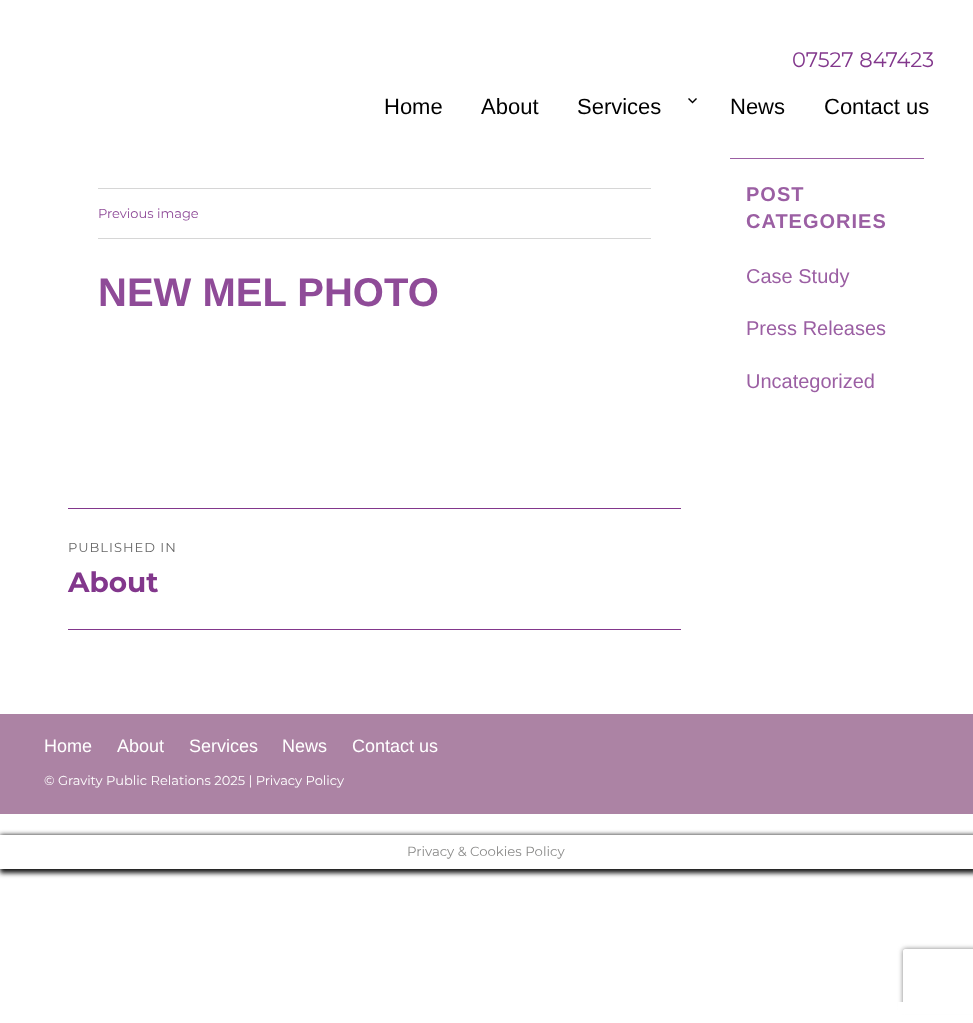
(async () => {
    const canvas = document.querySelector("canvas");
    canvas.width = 973;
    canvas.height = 1023;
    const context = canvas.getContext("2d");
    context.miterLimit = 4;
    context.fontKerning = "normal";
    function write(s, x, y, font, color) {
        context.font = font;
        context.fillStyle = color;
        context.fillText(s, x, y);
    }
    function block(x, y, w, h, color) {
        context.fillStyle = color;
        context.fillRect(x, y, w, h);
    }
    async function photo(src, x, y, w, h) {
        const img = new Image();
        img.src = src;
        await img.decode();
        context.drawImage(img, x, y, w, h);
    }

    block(0, 0, 973, 1023, "rgb(255, 255, 255)");
    write("07527 847423", 792, 67, "21px Montserrat", "rgb(130, 55, 140)");
    write("Home", 384, 114, "22px Liberation Sans", "rgb(0, 0, 0)");
    write("About", 481, 114, "22px Liberation Sans", "rgb(0, 0, 0)");
    write("Services", 577, 114, "22px Liberation Sans", "rgb(0, 0, 0)");
    await photo("media/1.png", 688, 98, 9, 6);
    write("News", 730, 114, "22px Liberation Sans", "rgb(0, 0, 0)");
    write("Contact us", 824, 114, "22px Liberation Sans", "rgb(0, 0, 0)");
    block(98, 188, 553, 1, "rgb(214, 214, 214)");
    block(98, 238, 553, 1, "rgb(214, 214, 214)");
    write("Previous image", 98, 218, "13px Montserrat", "rgb(143, 75, 152)");
    write("NEW MEL PHOTO", 98, 306, "bold 40px Liberation Sans", "rgb(143, 75, 152)");
    block(68, 508, 613, 1, "rgb(130, 55, 140)");
    block(68, 629, 613, 1, "rgb(130, 55, 140)");
    context.letterSpacing = "1px";
    write("PUBLISHED IN", 68, 552, "13px Montserrat", "rgb(104, 104, 104)");
    context.letterSpacing = "0px";
    write("About", 68, 592, "bold 28px Montserrat", "rgb(130, 55, 140)");
    block(730, 158, 194, 1, "rgb(155, 95, 163)");
    context.letterSpacing = "1px";
    write("POST", 746, 201, "bold 20px Liberation Sans", "rgb(155, 95, 163)");
    write("CATEGORIES", 746, 228, "bold 20px Liberation Sans", "rgb(155, 95, 163)");
    context.letterSpacing = "0px";
    write("Case Study", 746, 283, "20px Liberation Sans", "rgb(155, 95, 163)");
    write("Press Releases", 746, 335, "20px Liberation Sans", "rgb(155, 95, 163)");
    write("Uncategorized", 746, 388, "20px Liberation Sans", "rgb(155, 95, 163)");
    block(0, 714, 973, 100, "rgb(172, 131, 164)");
    write("Home", 44, 752, "18px Liberation Sans", "rgb(255, 255, 255)");
    write("About", 117, 752, "18px Liberation Sans", "rgb(255, 255, 255)");
    write("Services", 189, 752, "18px Liberation Sans", "rgb(255, 255, 255)");
    write("News", 282, 752, "18px Liberation Sans", "rgb(255, 255, 255)");
    write("Contact us", 352, 752, "18px Liberation Sans", "rgb(255, 255, 255)");
    write("© Gravity Public Relations 2025 | Privacy Policy", 44, 785, "13px Montserrat", "rgb(255, 255, 255)");
    context.save();
    context.beginPath();
    context.moveTo(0, 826);
    context.lineTo(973, 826);
    context.lineTo(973, 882);
    context.lineTo(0, 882);
    context.closePath();
    context.moveTo(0, 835);
    context.lineTo(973, 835);
    context.lineTo(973, 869);
    context.lineTo(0, 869);
    context.closePath();
    context.clip("evenodd");
    context.fillStyle = "rgb(22, 22, 22)";
    context.filter = "blur(2.5px)";
    context.beginPath();
    context.rect(0, 835, 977, 38);
    context.fill();
    context.filter = "none";
    context.restore();
    write("Privacy & Cookies Policy", 407, 856, "13.25px Montserrat", "rgb(139, 139, 138)");
    context.save();
    context.beginPath();
    context.moveTo(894, 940);
    context.lineTo(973, 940);
    context.lineTo(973, 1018);
    context.lineTo(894, 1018);
    context.closePath();
    context.moveTo(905, 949);
    context.lineTo(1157, 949);
    context.bezierCurveTo(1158, 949, 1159, 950, 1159, 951);
    context.lineTo(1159, 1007);
    context.bezierCurveTo(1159, 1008, 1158, 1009, 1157, 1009);
    context.lineTo(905, 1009);
    context.bezierCurveTo(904, 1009, 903, 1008, 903, 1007);
    context.lineTo(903, 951);
    context.bezierCurveTo(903, 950, 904, 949, 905, 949);
    context.closePath();
    context.clip("evenodd");
    context.fillStyle = "rgb(128, 128, 128)";
    context.filter = "blur(2.5px)";
    context.beginPath();
    context.roundRect(903, 949, 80, 60, 2);
    context.fill();
    context.filter = "none";
    context.restore();
    block(898, 1002, 75, 12, "rgb(255, 255, 255)");
})();
